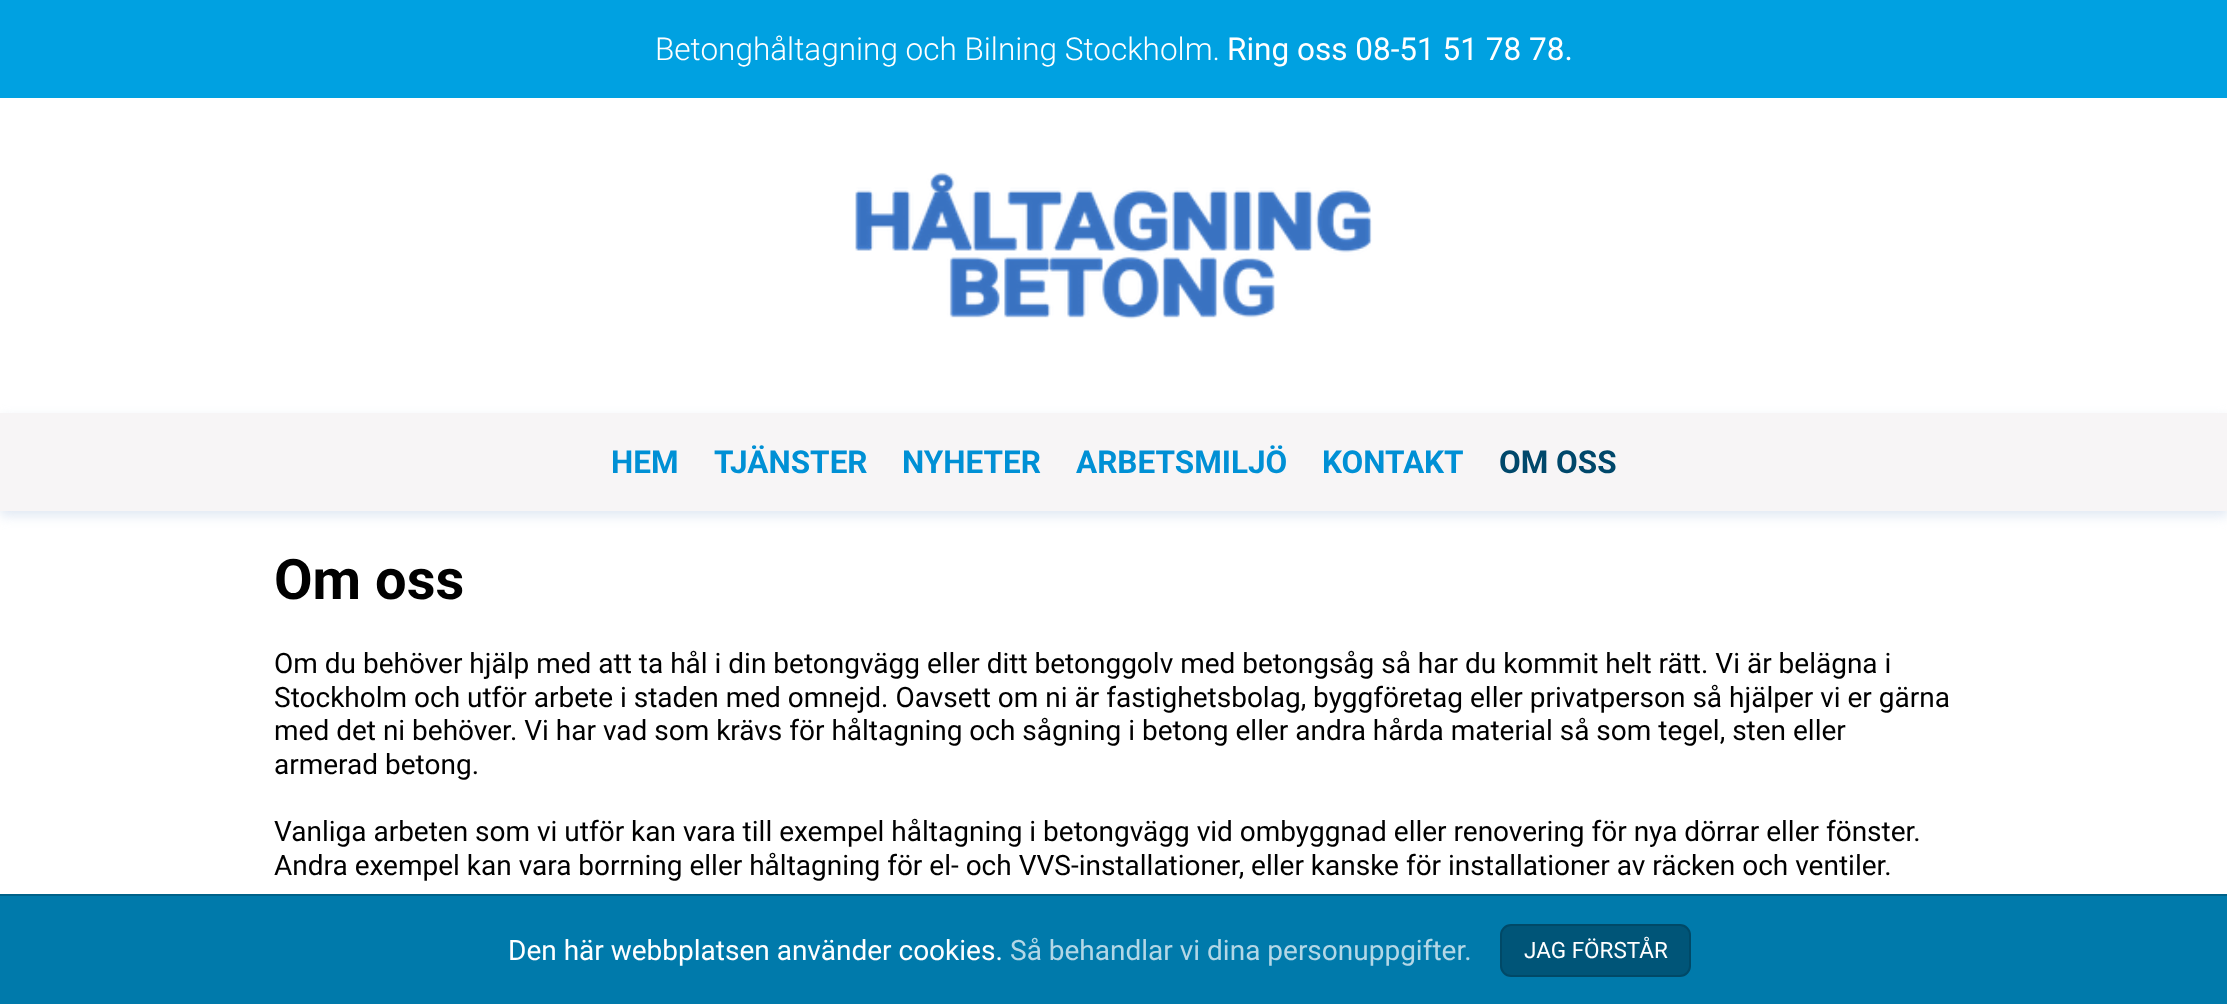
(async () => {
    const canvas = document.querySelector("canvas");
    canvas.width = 2227;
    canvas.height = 1004;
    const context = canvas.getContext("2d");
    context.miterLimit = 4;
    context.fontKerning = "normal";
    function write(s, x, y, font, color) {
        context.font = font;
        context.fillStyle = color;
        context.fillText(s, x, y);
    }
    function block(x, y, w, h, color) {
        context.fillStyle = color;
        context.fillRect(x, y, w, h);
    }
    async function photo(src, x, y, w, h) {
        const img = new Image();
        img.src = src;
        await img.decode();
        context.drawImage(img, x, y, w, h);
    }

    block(0, 0, 2227, 1004, "rgb(255, 255, 255)");
    block(0, 0, 2227, 98, "rgb(0, 161, 225)");
    write("Betonghåltagning och Bilning Stockholm.", 655, 60, "300 31.5px Roboto", "rgb(255, 255, 255)");
    write("Ring oss 08-51 51 78 78.", 1227, 60, "31.5px Roboto", "rgb(255, 255, 255)");
    await photo("media/1.png", 855, 172, 517, 147);
    context.fillStyle = "rgb(224, 232, 243)";
    context.filter = "blur(6px)";
    context.beginPath();
    context.rect(0, 418, 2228, 98);
    context.fill();
    context.filter = "none";
    block(0, 413, 2227, 98, "rgb(247, 245, 246)");
    write("HEM", 611, 473, "bold 31.5px Roboto", "rgb(0, 144, 213)");
    write("TJÄNSTER", 714, 473, "bold 31.5px Roboto", "rgb(0, 144, 213)");
    write("NYHETER", 902, 473, "bold 31.5px Roboto", "rgb(0, 144, 213)");
    write("ARBETSMILJÖ", 1076, 473, "bold 31.5px Roboto", "rgb(0, 144, 213)");
    write("KONTAKT", 1322, 473, "bold 31.5px Roboto", "rgb(0, 144, 213)");
    write("OM OSS", 1499, 473, "bold 31.5px Roboto", "rgb(0, 72, 107)");
    write("Om oss", 274, 599, "bold 56px Roboto", "rgb(0, 0, 0)");
    write("Om du behöver hjälp med att ta hål i din betongvägg eller ditt betonggolv med betongsåg så har du kommit helt rätt. Vi är belägna i", 274, 673, "28px Roboto", "rgb(0, 0, 0)");
    write("Stockholm och utför arbete i staden med omnejd. Oavsett om ni är fastighetsbolag, byggföretag eller privatperson så hjälper vi er gärna", 274, 707, "28px Roboto", "rgb(0, 0, 0)");
    write("med det ni behöver. Vi har vad som krävs för håltagning och sågning i betong eller andra hårda material så som tegel, sten eller", 274, 740, "28px Roboto", "rgb(0, 0, 0)");
    write("armerad betong.", 274, 774, "28px Roboto", "rgb(0, 0, 0)");
    write("Vanliga arbeten som vi utför kan vara till exempel håltagning i betongvägg vid ombyggnad eller renovering för nya dörrar eller fönster.", 274, 841, "28px Roboto", "rgb(0, 0, 0)");
    write("Andra exempel kan vara borrning eller håltagning för el- och VVS-installationer, eller kanske för installationer av räcken och ventiler.", 274, 875, "28px Roboto", "rgb(0, 0, 0)");
    block(0, 896, 2227, 108, "rgb(0, 122, 171)");
    block(0, 894, 2227, 2, "rgb(0, 98, 137)");
    write("Den här webbplatsen använder cookies.", 508, 960, "28px Roboto", "rgb(255, 255, 255)");
    write("Så behandlar vi dina personuppgifter.", 1010, 960, "28px Roboto", "rgb(179, 215, 230)");
    context.fillStyle = "rgb(0, 85, 120)";
    context.beginPath();
    context.roundRect(1501, 925, 189, 51, 10);
    context.fill();
    context.strokeStyle = "rgb(0, 73, 103)";
    context.lineWidth = 2;
    context.stroke();
    write("JAG FÖRSTÅR", 1524, 958, "22.5px Roboto", "rgb(255, 255, 255)");
})();
